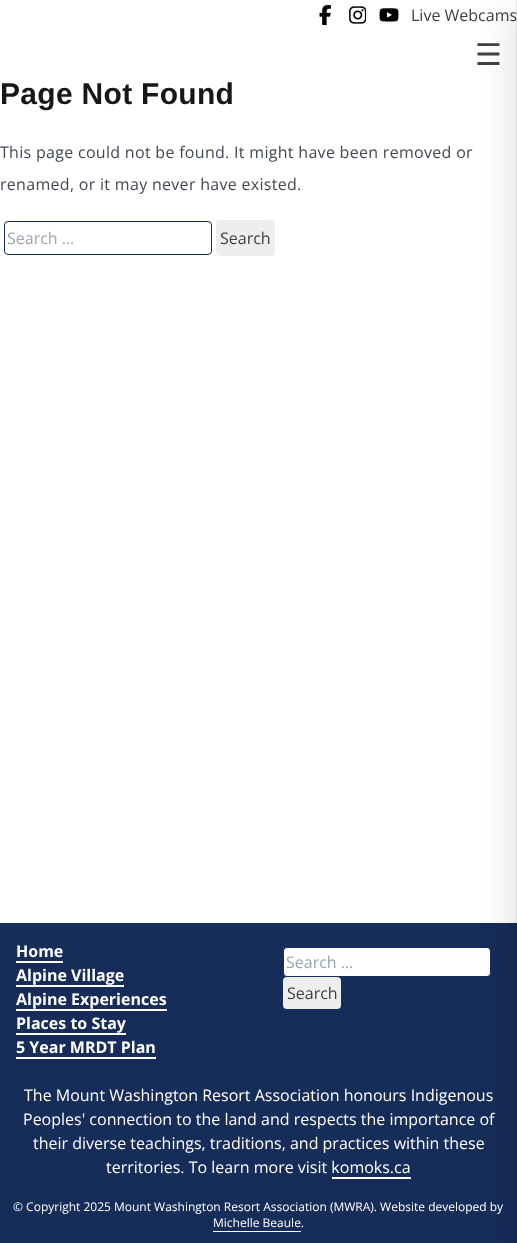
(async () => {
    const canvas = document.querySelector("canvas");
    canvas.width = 517;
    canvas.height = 1243;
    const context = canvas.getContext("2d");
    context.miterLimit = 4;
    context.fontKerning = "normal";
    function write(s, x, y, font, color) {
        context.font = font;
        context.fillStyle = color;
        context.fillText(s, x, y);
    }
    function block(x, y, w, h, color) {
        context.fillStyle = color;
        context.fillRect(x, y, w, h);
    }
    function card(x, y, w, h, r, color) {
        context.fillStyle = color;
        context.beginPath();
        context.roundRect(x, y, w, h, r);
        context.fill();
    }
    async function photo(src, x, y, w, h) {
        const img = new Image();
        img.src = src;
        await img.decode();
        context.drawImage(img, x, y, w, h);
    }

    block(0, 0, 517, 1243, "rgb(255, 255, 255)");
    write("Live Webcams", 411, 21, "16px Open Sans", "rgb(64, 64, 64)");
    block(0, 923, 517, 320, "rgb(22, 45, 89)");
    context.strokeStyle = "rgba(0, 0, 0, 0.06)";
    context.strokeRect(516.5, -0.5, 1, 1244);
    context.fillStyle = "rgb(255, 255, 255)";
    context.beginPath();
    context.roundRect(283.5, 947.5, 207, 29, 3.5);
    context.fill();
    context.strokeStyle = "rgb(22, 45, 89)";
    context.stroke();
    context.fillStyle = "rgba(0, 0, 0, 0.16)";
    context.filter = "blur(18px)";
    context.beginPath();
    context.rect(517, 10, 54, 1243);
    context.fill();
    context.filter = "none";
    await photo("media/1.png", 319, 5, 12, 20);
    await photo("media/2.png", 349, 6, 17, 18);
    await photo("media/3.png", 379, 8, 20, 14);
    write("☰", 475, 65, "30px DejaVu Sans", "rgb(64, 64, 64)");
    context.letterSpacing = "0.3px";
    write("Page Not Found", 0, 104, "bold 30px Liberation Sans", "rgb(23, 23, 23)");
    write("This page could not be found. It might have been removed or", 0, 158, "16px Open Sans", "rgb(66, 73, 82)");
    write("renamed, or it may never have existed.", 0, 190, "16px Open Sans", "rgb(66, 73, 82)");
    context.beginPath();
    context.roundRect(4.5, 221.5, 207, 33, 3.5);
    context.stroke();
    context.letterSpacing = "0px";
    write("Search …", 7, 244, "16px Open Sans", "rgb(156, 163, 175)");
    card(216, 220, 59, 36, 4, "rgb(238, 238, 238)");
    write("Search", 220, 244, "16px Open Sans", "rgb(64, 64, 64)");
    write("Home", 16, 957, "bold 16px Open Sans", "rgb(255, 255, 255)");
    block(16, 961, 47, 2, "rgb(255, 255, 255)");
    write("Alpine Village", 16, 981, "bold 16px Open Sans", "rgb(255, 255, 255)");
    block(16, 985, 108, 2, "rgb(255, 255, 255)");
    write("Alpine Experiences", 16, 1005, "bold 16px Open Sans", "rgb(255, 255, 255)");
    block(16, 1009, 151, 2, "rgb(255, 255, 255)");
    write("Places to Stay", 16, 1029, "bold 16px Open Sans", "rgb(255, 255, 255)");
    block(16, 1033, 110, 2, "rgb(255, 255, 255)");
    write("5 Year MRDT Plan", 16, 1053, "bold 16px Open Sans", "rgb(255, 255, 255)");
    block(16, 1057, 140, 2, "rgb(255, 255, 255)");
    write("Search …", 286, 968, "16px Open Sans", "rgb(156, 163, 175)");
    card(283, 977, 58, 32, 4, "rgb(238, 238, 238)");
    write("Search", 287, 999, "16px Open Sans", "rgb(64, 64, 64)");
    write("The Mount Washington Resort Association honours Indigenous", 24, 1101, "16px Open Sans", "rgb(255, 255, 255)");
    write("Peoples' connection to the land and respects the importance of", 23, 1125, "16px Open Sans", "rgb(255, 255, 255)");
    write("their diverse teachings, traditions, and practices within these", 33, 1149, "16px Open Sans", "rgb(255, 255, 255)");
    write("territories. To learn more visit komoks.ca", 106, 1173, "16px Open Sans", "rgb(255, 255, 255)");
    block(332, 1177, 79, 2, "rgb(255, 255, 255)");
    write("© Copyright 2025 Mount Washington Resort Association (MWRA). Website developed by", 13, 1211, "12px Open Sans", "rgb(255, 255, 255)");
    write("Michelle Beaule.", 213, 1227, "12px Open Sans", "rgb(255, 255, 255)");
    block(213, 1231, 88, 1, "rgb(255, 255, 255)");
})();
